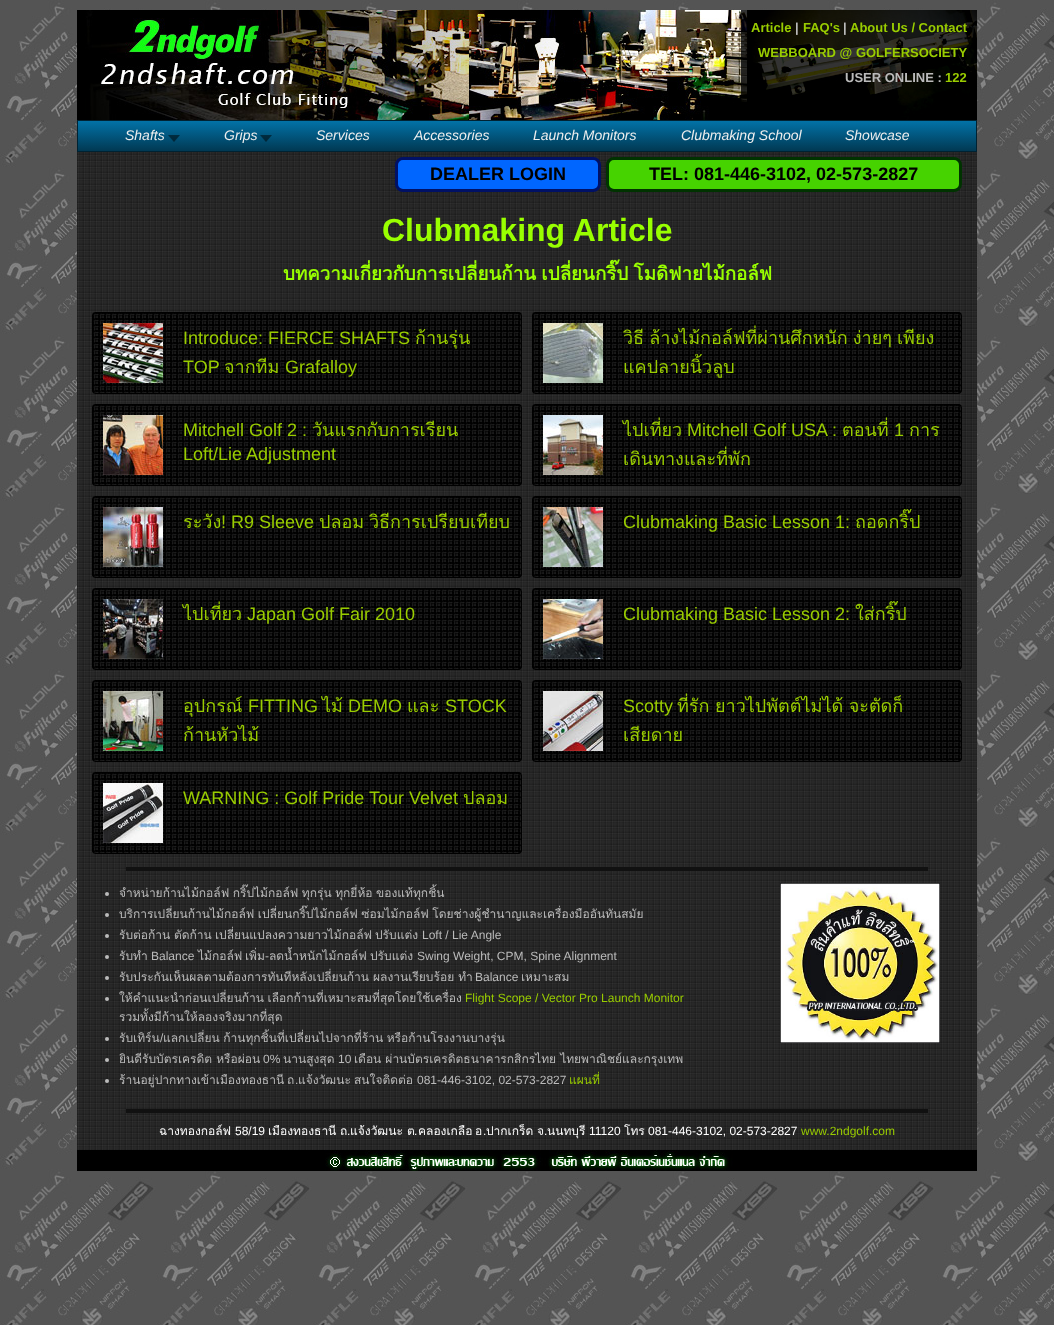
(async () => {
    const canvas = document.querySelector("canvas");
    canvas.width = 1054;
    canvas.height = 1325;
    const context = canvas.getContext("2d");
    context.miterLimit = 4;
    context.fontKerning = "normal";
    function write(s, x, y, font, color) {
        context.font = font;
        context.fillStyle = color;
        context.fillText(s, x, y);
    }
    function block(x, y, w, h, color) {
        context.fillStyle = color;
        context.fillRect(x, y, w, h);
    }
    async function photo(src, x, y, w, h) {
        const img = new Image();
        img.src = src;
        await img.decode();
        context.drawImage(img, x, y, w, h);
    }
    let gradient;

    block(0, 0, 1054, 1325, "rgb(255, 255, 255)");
    await photo("media/1.png", 0, 0, 1054, 1325);
    await photo("media/2.png", 77, 152, 900, 998);
    await photo("media/3.png", 77, 10, 900, 110);
    block(741, 10, 236, 106, "rgba(0, 0, 0, 0.8)");
    write("Article", 751, 32, "bold 13px Liberation Sans", "rgb(153, 204, 0)");
    write("|", 795, 32, "bold 13px Liberation Sans", "rgb(187, 187, 187)");
    write("FAQ's", 803, 32, "bold 13px Liberation Sans", "rgb(153, 204, 0)");
    write("|", 843, 32, "bold 13px Liberation Sans", "rgb(187, 187, 187)");
    write("About Us / Contact", 850, 32, "bold 13px Liberation Sans", "rgb(153, 204, 0)");
    write("WEBBOARD @ GOLFERSOCIETY", 758, 57, "bold 13px Liberation Sans", "rgb(153, 204, 0)");
    write("USER ONLINE :", 845, 82, "bold 13px Liberation Sans", "rgb(187, 187, 187)");
    write("122", 945, 82, "bold 13px Liberation Sans", "rgb(153, 204, 0)");
    gradient = context.createLinearGradient(78, 121, 78, 151);
    gradient.addColorStop(0, "rgb(2, 114, 167)");
    gradient.addColorStop(1, "rgb(1, 57, 83)");
    context.fillStyle = gradient;
    context.fillRect(78, 121, 898, 30);
    context.strokeStyle = "rgb(0, 34, 50)";
    context.strokeRect(77.5, 120.5, 899, 31);
    await photo("media/4.png", 168, 135, 12, 7);
    write("Shafts", 125, 140, "italic 14px Liberation Sans", "rgb(238, 238, 238)");
    await photo("media/4.png", 260, 135, 12, 7);
    write("Grips", 224, 140, "italic 14px Liberation Sans", "rgb(238, 238, 238)");
    write("Services", 316, 140, "italic 14px Liberation Sans", "rgb(238, 238, 238)");
    write("Accessories", 414, 140, "italic 14px Liberation Sans", "rgb(238, 238, 238)");
    write("Launch Monitors", 533, 140, "italic 14px Liberation Sans", "rgb(238, 238, 238)");
    write("Clubmaking School", 681, 140, "italic 14px Liberation Sans", "rgb(238, 238, 238)");
    write("Showcase", 845, 140, "italic 14px Liberation Sans", "rgb(238, 238, 238)");
    context.fillStyle = "rgb(0, 102, 255)";
    context.beginPath();
    context.roundRect(396.5, 158.5, 203, 32, 6.5);
    context.fill();
    context.strokeStyle = "rgb(0, 17, 102)";
    context.lineWidth = 3;
    context.stroke();
    write("DEALER LOGIN", 430, 180, "bold 18px Liberation Sans", "rgb(0, 0, 0)");
    context.fillStyle = "rgb(70, 211, 0)";
    context.beginPath();
    context.roundRect(607.5, 158.5, 353, 32, 6.5);
    context.fill();
    context.strokeStyle = "rgb(0, 51, 0)";
    context.stroke();
    write("TEL: 081-446-3102, 02-573-2827", 649, 180, "bold 18px Liberation Sans", "rgb(0, 0, 0)");
    write("Clubmaking Article", 382, 241, "bold 32px Liberation Sans", "rgb(153, 255, 0)");
    context.wordSpacing = "-1px";
    write("บทความเกี่ยวกับการเปลี่ยนก้าน เปลี่ยนกริ๊ป โมดิฟายไม้กอล์ฟ", 283, 280, "bold 18.75px Loma", "rgb(153, 255, 0)");
    await photo("media/5.png", 92, 312, 430, 82);
    context.beginPath();
    context.roundRect(92.5, 312.5, 429, 81, 3.5);
    context.strokeStyle = "rgb(0, 0, 0)";
    context.lineWidth = 1;
    context.stroke();
    await photo("media/6.png", 103, 323, 60, 60);
    context.wordSpacing = "0px";
    write("Introduce: FIERCE SHAFTS", 183, 344, "18px Liberation Sans", "rgb(153, 204, 0)");
    write("ก้านรุ่น", 415, 344, "18px Loma", "rgb(153, 204, 0)");
    write("TOP", 183, 373, "18px Liberation Sans", "rgb(153, 204, 0)");
    write("จากทีม", 224, 373, "18px Loma", "rgb(153, 204, 0)");
    write("Grafalloy", 285, 373, "18px Liberation Sans", "rgb(153, 204, 0)");
    await photo("media/7.png", 532, 312, 430, 82);
    context.beginPath();
    context.roundRect(532.5, 312.5, 429, 81, 3.5);
    context.stroke();
    await photo("media/8.png", 543, 323, 60, 60);
    context.wordSpacing = "-1px";
    write("วิธี ล้างไม้กอล์ฟที่ผ่านศึกหนัก ง่ายๆ เพียง", 623, 344, "18px Loma", "rgb(153, 204, 0)");
    context.wordSpacing = "0px";
    write("แคปลายนิ้วลูบ", 623, 373, "18px Loma", "rgb(153, 204, 0)");
    await photo("media/9.png", 92, 404, 430, 82);
    context.beginPath();
    context.roundRect(92.5, 404.5, 429, 81, 3.5);
    context.stroke();
    await photo("media/10.png", 103, 415, 60, 60);
    write("Mitchell Golf 2 :", 183, 436, "18px Liberation Sans", "rgb(153, 204, 0)");
    write("วันแรกกับการเรียน", 312, 436, "18px Loma", "rgb(153, 204, 0)");
    write("Loft/Lie Adjustment", 183, 460, "18px Liberation Sans", "rgb(153, 204, 0)");
    await photo("media/11.png", 532, 404, 430, 82);
    context.beginPath();
    context.roundRect(532.5, 404.5, 429, 81, 3.5);
    context.stroke();
    await photo("media/12.png", 543, 415, 60, 60);
    write("ไปเที่ยว", 623, 436, "18px Loma", "rgb(153, 204, 0)");
    write("Mitchell Golf USA :", 687, 436, "18px Liberation Sans", "rgb(153, 204, 0)");
    write("ตอนที่", 842, 436, "18px Loma", "rgb(153, 204, 0)");
    write("1", 894, 436, "18px Liberation Sans", "rgb(153, 204, 0)");
    write("การ", 909, 436, "18px Loma", "rgb(153, 204, 0)");
    write("เดินทางและที่พัก", 623, 465, "18px Loma", "rgb(153, 204, 0)");
    await photo("media/13.png", 92, 496, 430, 82);
    context.beginPath();
    context.roundRect(92.5, 496.5, 429, 81, 3.5);
    context.stroke();
    await photo("media/14.png", 103, 507, 60, 60);
    write("ระวัง", 183, 528, "18px Loma", "rgb(153, 204, 0)");
    write("! R9 Sleeve", 221, 528, "18px Liberation Sans", "rgb(153, 204, 0)");
    write("ปลอม", 319, 528, "18px Loma", "rgb(153, 204, 0)");
    write("วิธีการเปรียบเทียบ", 369, 528, "18px Loma", "rgb(153, 204, 0)");
    await photo("media/15.png", 532, 496, 430, 82);
    context.beginPath();
    context.roundRect(532.5, 496.5, 429, 81, 3.5);
    context.stroke();
    await photo("media/16.png", 543, 507, 60, 60);
    write("Clubmaking Basic Lesson 1:", 623, 528, "18px Liberation Sans", "rgb(153, 204, 0)");
    write("ถอดกริ๊ป", 855, 528, "18px Loma", "rgb(153, 204, 0)");
    await photo("media/5.png", 92, 588, 430, 82);
    context.beginPath();
    context.roundRect(92.5, 588.5, 429, 81, 3.5);
    context.stroke();
    await photo("media/17.png", 103, 599, 60, 60);
    write("ไปเที่ยว", 183, 620, "18px Loma", "rgb(153, 204, 0)");
    write("Japan Golf Fair 2010", 247, 620, "18px Liberation Sans", "rgb(153, 204, 0)");
    await photo("media/7.png", 532, 588, 430, 82);
    context.beginPath();
    context.roundRect(532.5, 588.5, 429, 81, 3.5);
    context.stroke();
    await photo("media/18.png", 543, 599, 60, 60);
    write("Clubmaking Basic Lesson 2:", 623, 620, "18px Liberation Sans", "rgb(153, 204, 0)");
    write("ใส่กริ๊ป", 855, 620, "18px Loma", "rgb(153, 204, 0)");
    await photo("media/9.png", 92, 680, 430, 82);
    context.beginPath();
    context.roundRect(92.5, 680.5, 429, 81, 3.5);
    context.stroke();
    await photo("media/19.png", 103, 691, 60, 60);
    write("อุปกรณ์", 183, 712, "18px Loma", "rgb(153, 204, 0)");
    write("FITTING", 248, 712, "18px Liberation Sans", "rgb(153, 204, 0)");
    write("ไม้", 322, 712, "18px Loma", "rgb(153, 204, 0)");
    write("DEMO", 348, 712, "18px Liberation Sans", "rgb(153, 204, 0)");
    write("และ", 407, 712, "18px Loma", "rgb(153, 204, 0)");
    write("STOCK", 445, 712, "18px Liberation Sans", "rgb(153, 204, 0)");
    write("ก้านหัวไม้", 183, 741, "18px Loma", "rgb(153, 204, 0)");
    await photo("media/11.png", 532, 680, 430, 82);
    context.beginPath();
    context.roundRect(532.5, 680.5, 429, 81, 3.5);
    context.stroke();
    await photo("media/20.png", 543, 691, 60, 60);
    write("Scotty", 623, 712, "18px Liberation Sans", "rgb(153, 204, 0)");
    context.wordSpacing = "-0.5px";
    write("ที่รัก ยาวไปพัตต์ไม่ได้ จะตัดก็", 677, 712, "18px Loma", "rgb(153, 204, 0)");
    context.wordSpacing = "0px";
    write("เสียดาย", 623, 741, "18px Loma", "rgb(153, 204, 0)");
    await photo("media/13.png", 92, 772, 430, 82);
    context.beginPath();
    context.roundRect(92.5, 772.5, 429, 81, 3.5);
    context.stroke();
    await photo("media/21.png", 103, 783, 60, 60);
    write("WARNING : Golf Pride Tour Velvet", 183, 804, "18px Liberation Sans", "rgb(153, 204, 0)");
    write("ปลอม", 463, 804, "18px Loma", "rgb(153, 204, 0)");
    block(126, 867, 802, 4, "rgb(17, 17, 17)");
    context.fillStyle = "rgb(187, 187, 187)";
    context.beginPath();
    context.arc(107, 894, 2, 0, Math.PI * 2);
    context.fill();
    context.wordSpacing = "-0.5px";
    write("จำหน่ายก้านไม้กอล์ฟ กริ๊ปไม้กอล์ฟ ทุกรุ่น ทุกยี่ห้อ ของแท้ทุกชิ้น", 119, 897, "12px Loma", "rgb(187, 187, 187)");
    context.beginPath();
    context.arc(107, 915, 2, 0, Math.PI * 2);
    context.fill();
    write("บริการเปลี่ยนก้านไม้กอล์ฟ เปลี่ยนกริ๊ปไม้กอล์ฟ ซ่อมไม้กอล์ฟ โดยช่างผู้ชำนาญและเครื่องมืออันทันสมัย", 119, 918, "12px Loma", "rgb(187, 187, 187)");
    context.beginPath();
    context.arc(107, 936, 2, 0, Math.PI * 2);
    context.fill();
    context.wordSpacing = "0px";
    write("รับต่อก้าน", 119, 939, "12px Loma", "rgb(187, 187, 187)");
    write("ตัดก้าน", 174, 939, "12px Loma", "rgb(187, 187, 187)");
    write("เปลี่ยนแปลงความยาวไม้กอล์ฟ", 215, 939, "12px Loma", "rgb(187, 187, 187)");
    write("ปรับแต่ง", 375, 939, "12px Loma", "rgb(187, 187, 187)");
    write("Loft / Lie Angle", 422, 939, "12px Liberation Sans", "rgb(187, 187, 187)");
    context.beginPath();
    context.arc(107, 957, 2, 0, Math.PI * 2);
    context.fill();
    write("รับทำ", 119, 960, "12px Loma", "rgb(187, 187, 187)");
    write("Balance", 151, 960, "12px Liberation Sans", "rgb(187, 187, 187)");
    write("ไม้กอล์ฟ", 198, 960, "12px Loma", "rgb(187, 187, 187)");
    write("เพิ่ม ลดน้ำหนักไม้กอล์ฟ", 245, 960, "12px Loma", "rgb(187, 187, 187)");
    write("ปรับแต่ง", 370, 960, "12px Loma", "rgb(187, 187, 187)");
    write("Swing Weight, CPM, Spine Alignment", 417, 960, "12px Liberation Sans", "rgb(187, 187, 187)");
    write("-", 265, 960, "12px Liberation Sans", "rgb(187, 187, 187)");
    context.beginPath();
    context.arc(107, 978, 2, 0, Math.PI * 2);
    context.fill();
    write("รับประกันเห็นผลตามต้องการทันทีหลังเปลี่ยนก้าน ผลงานเรียบร้อย ทำ", 119, 981, "12px Loma", "rgb(187, 187, 187)");
    write("Balance", 475, 981, "12px Liberation Sans", "rgb(187, 187, 187)");
    write("เหมาะสม", 521, 981, "12px Loma", "rgb(187, 187, 187)");
    context.beginPath();
    context.arc(107, 999, 2, 0, Math.PI * 2);
    context.fill();
    context.wordSpacing = "-0.5px";
    write("ให้คำแนะนำก่อนเปลี่ยนก้าน เลือกก้านที่เหมาะสมที่สุดโดยใช้เครื่อง", 119, 1002, "12px Loma", "rgb(187, 187, 187)");
    context.wordSpacing = "0px";
    write("Flight Scope / Vector Pro Launch Monitor", 465, 1002, "12px Liberation Sans", "rgb(153, 204, 0)");
    write("รวมทั้งมีก้านให้ลองจริงมากที่สุด", 119, 1021, "12px Loma", "rgb(187, 187, 187)");
    context.beginPath();
    context.arc(107, 1039, 2, 0, Math.PI * 2);
    context.fill();
    write("รับเทิร์น", 119, 1042, "12px Loma", "rgb(187, 187, 187)");
    write("/", 160, 1042, "12px Liberation Sans", "rgb(187, 187, 187)");
    context.wordSpacing = "-0.5px";
    write("แลกเปลี่ยน ก้านทุกชิ้นที่เปลี่ยนไปจากที่ร้าน หรือก้านโรงงานบางรุ่น", 163, 1042, "12px Loma", "rgb(187, 187, 187)");
    context.beginPath();
    context.arc(107, 1060, 2, 0, Math.PI * 2);
    context.fill();
    context.wordSpacing = "0px";
    write("ยินดีรับบัตรเครดิต หรือผ่อน", 119, 1063, "12px Loma", "rgb(187, 187, 187)");
    write("0%", 263, 1063, "12px Liberation Sans", "rgb(187, 187, 187)");
    write("นานสูงสุด", 283, 1063, "12px Loma", "rgb(187, 187, 187)");
    write("10", 338, 1063, "12px Liberation Sans", "rgb(187, 187, 187)");
    write("เดือน ผ่านบัตรเครดิตธนาคารกสิกรไทย ไทยพาณิชย์และกรุงเทพ", 354, 1063, "12px Loma", "rgb(187, 187, 187)");
    context.beginPath();
    context.arc(107, 1081, 2, 0, Math.PI * 2);
    context.fill();
    write("ร้านอยู่ปากทางเข้าเมืองทองธานี", 119, 1084, "12px Loma", "rgb(187, 187, 187)");
    write("ถ", 287, 1084, "12px Loma", "rgb(187, 187, 187)");
    write(".", 295, 1084, "12px Liberation Sans", "rgb(187, 187, 187)");
    write("แจ้งวัฒนะ", 298, 1084, "12px Loma", "rgb(187, 187, 187)");
    write("สนใจติดต่อ", 354, 1084, "12px Loma", "rgb(187, 187, 187)");
    write("081-446-3102, 02-573-2827", 417, 1084, "12px Liberation Sans", "rgb(187, 187, 187)");
    write("แผนที่", 569, 1084, "12px Loma", "rgb(153, 204, 0)");
    await photo("media/22.png", 780, 883, 160, 160);
    block(126, 1109, 802, 4, "rgb(17, 17, 17)");
    write("ฉางทองกอล์ฟ", 159, 1135, "12px Loma", "rgb(255, 255, 255)");
    write("58/19", 235, 1135, "12px Liberation Sans", "rgb(255, 255, 255)");
    write("เมืองทองธานี", 268, 1135, "12px Loma", "rgb(255, 255, 255)");
    write("ถ", 340, 1135, "12px Loma", "rgb(255, 255, 255)");
    write(".", 347, 1135, "12px Liberation Sans", "rgb(255, 255, 255)");
    write("แจ้งวัฒนะ", 350, 1135, "12px Loma", "rgb(255, 255, 255)");
    write("ต", 407, 1135, "12px Loma", "rgb(255, 255, 255)");
    write(".", 414, 1135, "12px Liberation Sans", "rgb(255, 255, 255)");
    write("คลองเกลือ", 418, 1135, "12px Loma", "rgb(255, 255, 255)");
    write("อ", 475, 1135, "12px Loma", "rgb(255, 255, 255)");
    write(".", 483, 1135, "12px Liberation Sans", "rgb(255, 255, 255)");
    write("ปากเกร็ด", 486, 1135, "12px Loma", "rgb(255, 255, 255)");
    write("จ", 537, 1135, "12px Loma", "rgb(255, 255, 255)");
    write(".", 544, 1135, "12px Liberation Sans", "rgb(255, 255, 255)");
    write("นนทบุรี", 547, 1135, "12px Loma", "rgb(255, 255, 255)");
    write("11120", 589, 1135, "12px Liberation Sans", "rgb(255, 255, 255)");
    write("โทร", 624, 1135, "12px Loma", "rgb(255, 255, 255)");
    write("081-446-3102, 02-573-2827", 648, 1135, "12px Liberation Sans", "rgb(255, 255, 255)");
    write("www.2ndgolf.com", 801, 1135, "12px Liberation Sans", "rgb(153, 204, 0)");
    await photo("media/23.png", 77, 1150, 900, 21);
})();
